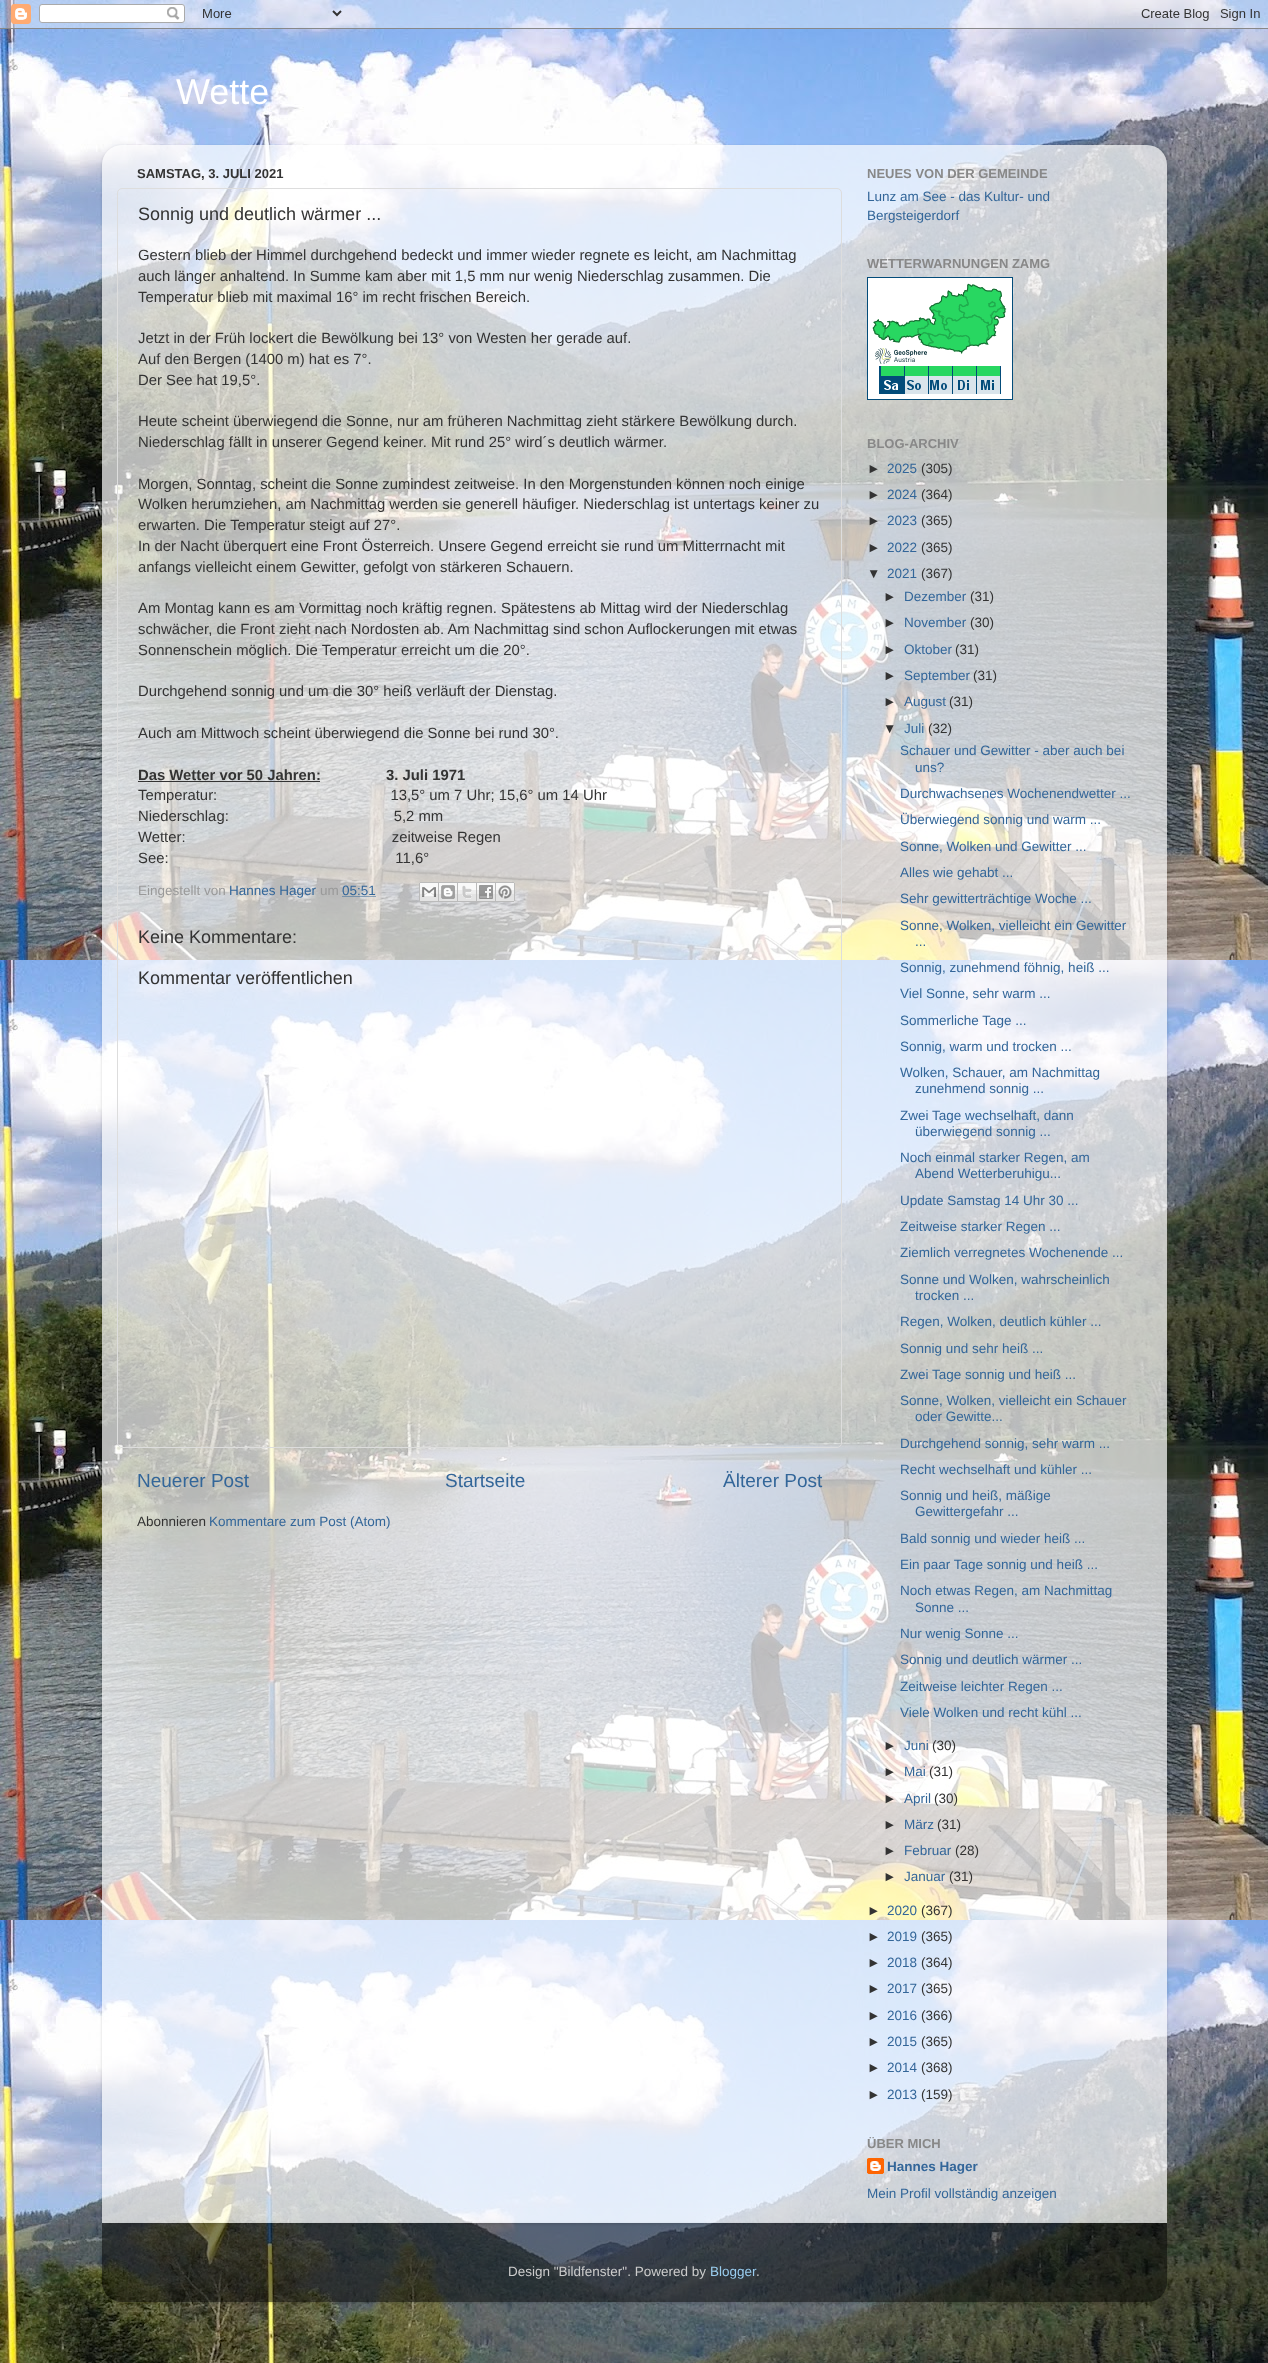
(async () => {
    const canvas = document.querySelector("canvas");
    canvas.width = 1268;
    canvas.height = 2363;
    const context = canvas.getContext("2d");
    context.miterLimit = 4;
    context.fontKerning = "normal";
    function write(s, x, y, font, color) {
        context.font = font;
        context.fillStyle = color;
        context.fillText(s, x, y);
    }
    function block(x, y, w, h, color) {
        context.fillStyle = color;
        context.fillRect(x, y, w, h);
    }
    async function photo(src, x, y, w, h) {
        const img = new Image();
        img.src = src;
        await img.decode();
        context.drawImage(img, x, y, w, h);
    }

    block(0, 0, 1268, 2363, "rgb(255, 255, 255)");
    await photo("media/1.png", 0, 0, 1268, 2363);
    await photo("media/2.png", 0, 0, 1268, 29);
    write("Wette", 176, 104, "36px Liberation Sans", "rgb(255, 255, 255)");
    context.save();
    context.beginPath();
    context.moveTo(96, 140);
    context.lineTo(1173, 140);
    context.lineTo(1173, 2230);
    context.lineTo(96, 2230);
    context.closePath();
    context.moveTo(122, 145);
    context.lineTo(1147, 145);
    context.bezierCurveTo(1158, 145, 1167, 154, 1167, 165);
    context.lineTo(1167, 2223);
    context.lineTo(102, 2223);
    context.lineTo(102, 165);
    context.bezierCurveTo(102, 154, 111, 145, 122, 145);
    context.closePath();
    context.clip("evenodd");
    context.fillStyle = "rgba(0, 0, 0, 0.15)";
    context.filter = "blur(1.5px)";
    context.beginPath();
    context.roundRect(102, 146, 1065, 2078, 20);
    context.fill();
    context.filter = "none";
    context.restore();
    await photo("media/3.png", 102, 145, 1065, 2078);
    write("SAMSTAG, 3. JULI 2021", 137, 178, "bold 13px Liberation Sans", "rgb(51, 51, 51)");
    context.beginPath();
    context.roundRect(117.5, 188.5, 724, 1259, 4.5);
    context.strokeStyle = "rgb(221, 221, 221)";
    context.stroke();
    write("Sonnig und deutlich wärmer ...", 138, 220, "18px Liberation Sans", "rgb(51, 51, 51)");
    write("Gestern blieb der Himmel durchgehend bedeckt und immer wieder regnete es leicht, am Nachmittag", 138, 260, "14.85px Liberation Sans", "rgb(51, 51, 51)");
    write("auch länger anhaltend. In Summe kam aber mit 1,5 mm nur wenig Niederschlag zusammen. Die", 138, 281, "14.85px Liberation Sans", "rgb(51, 51, 51)");
    write("Temperatur blieb mit maximal 16° im recht frischen Bereich.", 138, 302, "14.85px Liberation Sans", "rgb(51, 51, 51)");
    write("Jetzt in der Früh lockert die Bewölkung bei 13° von Westen her gerade auf.", 138, 343, "14.85px Liberation Sans", "rgb(51, 51, 51)");
    write("Auf den Bergen (1400 m) hat es 7°.", 138, 364, "14.85px Liberation Sans", "rgb(51, 51, 51)");
    write("Der See hat 19,5°.", 138, 385, "14.85px Liberation Sans", "rgb(51, 51, 51)");
    write("Heute scheint überwiegend die Sonne, nur am früheren Nachmittag zieht stärkere Bewölkung durch.", 138, 426, "14.85px Liberation Sans", "rgb(51, 51, 51)");
    write("Niederschlag fällt in unserer Gegend keiner. Mit rund 25° wird´s deutlich wärmer.", 138, 447, "14.85px Liberation Sans", "rgb(51, 51, 51)");
    write("Morgen, Sonntag, scheint die Sonne zumindest zeitweise. In den Morgenstunden können noch einige", 138, 489, "14.85px Liberation Sans", "rgb(51, 51, 51)");
    write("Wolken herumziehen, am Nachmittag werden sie generell häufiger. Niederschlag ist untertags keiner zu", 138, 509, "14.85px Liberation Sans", "rgb(51, 51, 51)");
    write("erwarten. Die Temperatur steigt auf 27°.", 138, 530, "14.85px Liberation Sans", "rgb(51, 51, 51)");
    write("In der Nacht überquert eine Front Österreich. Unsere Gegend erreicht sie rund um Mitterrnacht mit", 138, 551, "14.85px Liberation Sans", "rgb(51, 51, 51)");
    write("anfangs vielleicht einem Gewitter, gefolgt von stärkeren Schauern.", 138, 572, "14.85px Liberation Sans", "rgb(51, 51, 51)");
    write("Am Montag kann es am Vormittag noch kräftig regnen. Spätestens ab Mittag wird der Niederschlag", 138, 613, "14.85px Liberation Sans", "rgb(51, 51, 51)");
    write("schwächer, die Front zieht nach Nordosten ab. Am Nachmittag sind schon Auflockerungen mit etwas", 138, 634, "14.85px Liberation Sans", "rgb(51, 51, 51)");
    write("Sonnenschein möglich. Die Temperatur erreicht um die 20°.", 138, 655, "14.85px Liberation Sans", "rgb(51, 51, 51)");
    write("Durchgehend sonnig und um die 30° heiß verläuft der Dienstag.", 138, 696, "14.85px Liberation Sans", "rgb(51, 51, 51)");
    write("Auch am Mittwoch scheint überwiegend die Sonne bei rund 30°.", 138, 738, "14.85px Liberation Sans", "rgb(51, 51, 51)");
    write("Das Wetter vor 50 Jahren:", 138, 780, "bold 14.85px Liberation Sans", "rgb(51, 51, 51)");
    block(138, 781, 182, 1, "rgb(51, 51, 51)");
    write("3. Juli 1971", 386, 780, "bold 14.85px Liberation Sans", "rgb(51, 51, 51)");
    write("Temperatur:                                          13,5° um 7 Uhr; 15,6° um 14 Uhr", 138, 800, "14.85px Liberation Sans", "rgb(51, 51, 51)");
    write("Niederschlag:                                        5,2 mm", 138, 821, "14.85px Liberation Sans", "rgb(51, 51, 51)");
    write("Wetter:                                                  zeitweise Regen", 138, 842, "14.85px Liberation Sans", "rgb(51, 51, 51)");
    write("See:                                                       11,6°", 138, 863, "14.85px Liberation Sans", "rgb(51, 51, 51)");
    write("Eingestellt von", 138, 895, "13.5px Liberation Sans", "rgb(153, 153, 153)");
    write("Hannes Hager", 229, 895, "13.5px Liberation Sans", "rgb(51, 102, 153)");
    write("um", 320, 895, "13.5px Liberation Sans", "rgb(153, 153, 153)");
    write("05:51", 342, 895, "13.5px Liberation Sans", "rgb(51, 102, 153)");
    context.beginPath();
    context.moveTo(342.5, 896.5);
    context.lineTo(376, 896.5);
    context.strokeStyle = "rgb(51, 102, 153)";
    context.setLineDash([1, 1]);
    context.stroke();
    await photo("media/4.png", 419, 882, 20, 20);
    await photo("media/5.png", 439, 882, 19, 20);
    await photo("media/6.png", 458, 882, 19, 20);
    await photo("media/7.png", 477, 882, 19, 20);
    await photo("media/8.png", 496, 882, 19, 20);
    write("Keine Kommentare:", 138, 943, "18px Liberation Sans", "rgb(51, 51, 51)");
    write("Kommentar veröffentlichen", 138, 984, "18px Liberation Sans", "rgb(51, 51, 51)");
    write("Neuerer Post", 137, 1487, "19px Liberation Sans", "rgb(51, 102, 153)");
    write("Startseite", 445, 1487, "19px Liberation Sans", "rgb(51, 102, 153)");
    write("Älterer Post", 723, 1487, "19px Liberation Sans", "rgb(51, 102, 153)");
    write("Abonnieren", 137, 1526, "13.5px Liberation Sans", "rgb(51, 51, 51)");
    write("Kommentare zum Post (Atom)", 209, 1526, "13.5px Liberation Sans", "rgb(51, 102, 153)");
    write("NEUES VON DER GEMEINDE", 867, 178, "bold 13px Liberation Sans", "rgb(136, 136, 136)");
    write("Lunz am See - das Kultur- und", 867, 201, "13.5px Liberation Sans", "rgb(51, 102, 153)");
    write("Bergsteigerdorf", 867, 220, "13.5px Liberation Sans", "rgb(51, 102, 153)");
    write("WETTERWARNUNGEN ZAMG", 867, 268, "bold 13px Liberation Sans", "rgb(136, 136, 136)");
    await photo("media/9.png", 867, 277, 146, 123);
    write("BLOG-ARCHIV", 867, 448, "bold 13px Liberation Sans", "rgb(136, 136, 136)");
    write("►", 867, 473, "13.5px Liberation Sans", "rgb(51, 51, 51)");
    write("2025", 887, 473, "13.5px Liberation Sans", "rgb(51, 102, 153)");
    write("(305)", 921, 473, "13.5px Liberation Sans", "rgb(51, 51, 51)");
    write("►", 867, 499, "13.5px Liberation Sans", "rgb(51, 51, 51)");
    write("2024", 887, 499, "13.5px Liberation Sans", "rgb(51, 102, 153)");
    write("(364)", 921, 499, "13.5px Liberation Sans", "rgb(51, 51, 51)");
    write("►", 867, 525, "13.5px Liberation Sans", "rgb(51, 51, 51)");
    write("2023", 887, 525, "13.5px Liberation Sans", "rgb(51, 102, 153)");
    write("(365)", 921, 525, "13.5px Liberation Sans", "rgb(51, 51, 51)");
    write("►", 867, 552, "13.5px Liberation Sans", "rgb(51, 51, 51)");
    write("2022", 887, 552, "13.5px Liberation Sans", "rgb(51, 102, 153)");
    write("(365)", 921, 552, "13.5px Liberation Sans", "rgb(51, 51, 51)");
    write("▼", 867, 578, "13.5px Liberation Sans", "rgb(51, 51, 51)");
    write("2021", 887, 578, "13.5px Liberation Sans", "rgb(51, 102, 153)");
    write("(367)", 921, 578, "13.5px Liberation Sans", "rgb(51, 51, 51)");
    write("►", 883, 601, "13.5px Liberation Sans", "rgb(51, 51, 51)");
    write("Dezember", 904, 601, "13.5px Liberation Sans", "rgb(51, 102, 153)");
    write("(31)", 970, 601, "13.5px Liberation Sans", "rgb(51, 51, 51)");
    write("►", 883, 627, "13.5px Liberation Sans", "rgb(51, 51, 51)");
    write("November", 904, 627, "13.5px Liberation Sans", "rgb(51, 102, 153)");
    write("(30)", 970, 627, "13.5px Liberation Sans", "rgb(51, 51, 51)");
    write("►", 883, 654, "13.5px Liberation Sans", "rgb(51, 51, 51)");
    write("Oktober", 904, 654, "13.5px Liberation Sans", "rgb(51, 102, 153)");
    write("(31)", 955, 654, "13.5px Liberation Sans", "rgb(51, 51, 51)");
    write("►", 883, 680, "13.5px Liberation Sans", "rgb(51, 51, 51)");
    write("September", 904, 680, "13.5px Liberation Sans", "rgb(51, 102, 153)");
    write("(31)", 973, 680, "13.5px Liberation Sans", "rgb(51, 51, 51)");
    write("►", 883, 706, "13.5px Liberation Sans", "rgb(51, 51, 51)");
    write("August", 904, 706, "13.5px Liberation Sans", "rgb(51, 102, 153)");
    write("(31)", 949, 706, "13.5px Liberation Sans", "rgb(51, 51, 51)");
    write("▼", 883, 733, "13.5px Liberation Sans", "rgb(51, 51, 51)");
    write("Juli", 904, 733, "13.5px Liberation Sans", "rgb(51, 102, 153)");
    write("(32)", 928, 733, "13.5px Liberation Sans", "rgb(51, 51, 51)");
    write("Schauer und Gewitter - aber auch bei", 900, 755, "13.5px Liberation Sans", "rgb(51, 102, 153)");
    write("uns?", 915, 772, "13.5px Liberation Sans", "rgb(51, 102, 153)");
    write("Durchwachsenes Wochenendwetter ...", 900, 798, "13.5px Liberation Sans", "rgb(51, 102, 153)");
    write("Überwiegend sonnig und warm ...", 900, 824, "13.5px Liberation Sans", "rgb(51, 102, 153)");
    write("Sonne, Wolken und Gewitter ...", 900, 851, "13.5px Liberation Sans", "rgb(51, 102, 153)");
    write("Alles wie gehabt ...", 900, 877, "13.5px Liberation Sans", "rgb(51, 102, 153)");
    write("Sehr gewitterträchtige Woche ...", 900, 903, "13.5px Liberation Sans", "rgb(51, 102, 153)");
    write("Sonne, Wolken, vielleicht ein Gewitter", 900, 930, "13.5px Liberation Sans", "rgb(51, 102, 153)");
    write("...", 915, 946, "13.5px Liberation Sans", "rgb(51, 102, 153)");
    write("Sonnig, zunehmend föhnig, heiß ...", 900, 972, "13.5px Liberation Sans", "rgb(51, 102, 153)");
    write("Viel Sonne, sehr warm ...", 900, 998, "13.5px Liberation Sans", "rgb(51, 102, 153)");
    write("Sommerliche Tage ...", 900, 1025, "13.5px Liberation Sans", "rgb(51, 102, 153)");
    write("Sonnig, warm und trocken ...", 900, 1051, "13.5px Liberation Sans", "rgb(51, 102, 153)");
    write("Wolken, Schauer, am Nachmittag", 900, 1077, "13.5px Liberation Sans", "rgb(51, 102, 153)");
    write("zunehmend sonnig ...", 915, 1093, "13.5px Liberation Sans", "rgb(51, 102, 153)");
    write("Zwei Tage wechselhaft, dann", 900, 1120, "13.5px Liberation Sans", "rgb(51, 102, 153)");
    write("überwiegend sonnig ...", 915, 1136, "13.5px Liberation Sans", "rgb(51, 102, 153)");
    write("Noch einmal starker Regen, am", 900, 1162, "13.5px Liberation Sans", "rgb(51, 102, 153)");
    write("Abend Wetterberuhigu...", 915, 1178, "13.5px Liberation Sans", "rgb(51, 102, 153)");
    write("Update Samstag 14 Uhr 30 ...", 900, 1205, "13.5px Liberation Sans", "rgb(51, 102, 153)");
    write("Zeitweise starker Regen ...", 900, 1231, "13.5px Liberation Sans", "rgb(51, 102, 153)");
    write("Ziemlich verregnetes Wochenende ...", 900, 1257, "13.5px Liberation Sans", "rgb(51, 102, 153)");
    write("Sonne und Wolken, wahrscheinlich", 900, 1284, "13.5px Liberation Sans", "rgb(51, 102, 153)");
    write("trocken ...", 915, 1300, "13.5px Liberation Sans", "rgb(51, 102, 153)");
    write("Regen, Wolken, deutlich kühler ...", 900, 1326, "13.5px Liberation Sans", "rgb(51, 102, 153)");
    write("Sonnig und sehr heiß ...", 900, 1353, "13.5px Liberation Sans", "rgb(51, 102, 153)");
    write("Zwei Tage sonnig und heiß ...", 900, 1379, "13.5px Liberation Sans", "rgb(51, 102, 153)");
    write("Sonne, Wolken, vielleicht ein Schauer", 900, 1405, "13.5px Liberation Sans", "rgb(51, 102, 153)");
    write("oder Gewitte...", 915, 1421, "13.5px Liberation Sans", "rgb(51, 102, 153)");
    write("Durchgehend sonnig, sehr warm ...", 900, 1448, "13.5px Liberation Sans", "rgb(51, 102, 153)");
    write("Recht wechselhaft und kühler ...", 900, 1474, "13.5px Liberation Sans", "rgb(51, 102, 153)");
    write("Sonnig und heiß, mäßige", 900, 1500, "13.5px Liberation Sans", "rgb(51, 102, 153)");
    write("Gewittergefahr ...", 915, 1516, "13.5px Liberation Sans", "rgb(51, 102, 153)");
    write("Bald sonnig und wieder heiß ...", 900, 1543, "13.5px Liberation Sans", "rgb(51, 102, 153)");
    write("Ein paar Tage sonnig und heiß ...", 900, 1569, "13.5px Liberation Sans", "rgb(51, 102, 153)");
    write("Noch etwas Regen, am Nachmittag", 900, 1595, "13.5px Liberation Sans", "rgb(51, 102, 153)");
    write("Sonne ...", 915, 1612, "13.5px Liberation Sans", "rgb(51, 102, 153)");
    write("Nur wenig Sonne ...", 900, 1638, "13.5px Liberation Sans", "rgb(51, 102, 153)");
    write("Sonnig und deutlich wärmer ...", 900, 1664, "13.5px Liberation Sans", "rgb(51, 102, 153)");
    write("Zeitweise leichter Regen ...", 900, 1691, "13.5px Liberation Sans", "rgb(51, 102, 153)");
    write("Viele Wolken und recht kühl ...", 900, 1717, "13.5px Liberation Sans", "rgb(51, 102, 153)");
    write("►", 883, 1750, "13.5px Liberation Sans", "rgb(51, 51, 51)");
    write("Juni", 904, 1750, "13.5px Liberation Sans", "rgb(51, 102, 153)");
    write("(30)", 932, 1750, "13.5px Liberation Sans", "rgb(51, 51, 51)");
    write("►", 883, 1776, "13.5px Liberation Sans", "rgb(51, 51, 51)");
    write("Mai", 904, 1776, "13.5px Liberation Sans", "rgb(51, 102, 153)");
    write("(31)", 929, 1776, "13.5px Liberation Sans", "rgb(51, 51, 51)");
    write("►", 883, 1803, "13.5px Liberation Sans", "rgb(51, 51, 51)");
    write("April", 904, 1803, "13.5px Liberation Sans", "rgb(51, 102, 153)");
    write("(30)", 934, 1803, "13.5px Liberation Sans", "rgb(51, 51, 51)");
    write("►", 883, 1829, "13.5px Liberation Sans", "rgb(51, 51, 51)");
    write("März", 904, 1829, "13.5px Liberation Sans", "rgb(51, 102, 153)");
    write("(31)", 937, 1829, "13.5px Liberation Sans", "rgb(51, 51, 51)");
    write("►", 883, 1855, "13.5px Liberation Sans", "rgb(51, 51, 51)");
    write("Februar", 904, 1855, "13.5px Liberation Sans", "rgb(51, 102, 153)");
    write("(28)", 955, 1855, "13.5px Liberation Sans", "rgb(51, 51, 51)");
    write("►", 883, 1881, "13.5px Liberation Sans", "rgb(51, 51, 51)");
    write("Januar", 904, 1881, "13.5px Liberation Sans", "rgb(51, 102, 153)");
    write("(31)", 949, 1881, "13.5px Liberation Sans", "rgb(51, 51, 51)");
    write("►", 867, 1915, "13.5px Liberation Sans", "rgb(51, 51, 51)");
    write("2020", 887, 1915, "13.5px Liberation Sans", "rgb(51, 102, 153)");
    write("(367)", 921, 1915, "13.5px Liberation Sans", "rgb(51, 51, 51)");
    write("►", 867, 1941, "13.5px Liberation Sans", "rgb(51, 51, 51)");
    write("2019", 887, 1941, "13.5px Liberation Sans", "rgb(51, 102, 153)");
    write("(365)", 921, 1941, "13.5px Liberation Sans", "rgb(51, 51, 51)");
    write("►", 867, 1967, "13.5px Liberation Sans", "rgb(51, 51, 51)");
    write("2018", 887, 1967, "13.5px Liberation Sans", "rgb(51, 102, 153)");
    write("(364)", 921, 1967, "13.5px Liberation Sans", "rgb(51, 51, 51)");
    write("►", 867, 1993, "13.5px Liberation Sans", "rgb(51, 51, 51)");
    write("2017", 887, 1993, "13.5px Liberation Sans", "rgb(51, 102, 153)");
    write("(365)", 921, 1993, "13.5px Liberation Sans", "rgb(51, 51, 51)");
    write("►", 867, 2020, "13.5px Liberation Sans", "rgb(51, 51, 51)");
    write("2016", 887, 2020, "13.5px Liberation Sans", "rgb(51, 102, 153)");
    write("(366)", 921, 2020, "13.5px Liberation Sans", "rgb(51, 51, 51)");
    write("►", 867, 2046, "13.5px Liberation Sans", "rgb(51, 51, 51)");
    write("2015", 887, 2046, "13.5px Liberation Sans", "rgb(51, 102, 153)");
    write("(365)", 921, 2046, "13.5px Liberation Sans", "rgb(51, 51, 51)");
    write("►", 867, 2072, "13.5px Liberation Sans", "rgb(51, 51, 51)");
    write("2014", 887, 2072, "13.5px Liberation Sans", "rgb(51, 102, 153)");
    write("(368)", 921, 2072, "13.5px Liberation Sans", "rgb(51, 51, 51)");
    write("►", 867, 2099, "13.5px Liberation Sans", "rgb(51, 51, 51)");
    write("2013", 887, 2099, "13.5px Liberation Sans", "rgb(51, 102, 153)");
    write("(159)", 921, 2099, "13.5px Liberation Sans", "rgb(51, 51, 51)");
    write("ÜBER MICH", 867, 2148, "bold 13px Liberation Sans", "rgb(136, 136, 136)");
    await photo("media/10.png", 867, 2158, 17, 16);
    write("Hannes Hager", 887, 2171, "bold 13.5px Liberation Sans", "rgb(51, 102, 153)");
    write("Mein Profil vollständig anzeigen", 867, 2198, "13.5px Liberation Sans", "rgb(51, 102, 153)");
    context.save();
    context.beginPath();
    context.moveTo(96, 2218);
    context.lineTo(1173, 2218);
    context.lineTo(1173, 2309);
    context.lineTo(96, 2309);
    context.closePath();
    context.moveTo(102, 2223);
    context.lineTo(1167, 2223);
    context.lineTo(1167, 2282);
    context.bezierCurveTo(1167, 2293, 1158, 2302, 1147, 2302);
    context.lineTo(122, 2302);
    context.bezierCurveTo(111, 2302, 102, 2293, 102, 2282);
    context.closePath();
    context.clip("evenodd");
    context.fillStyle = "rgba(0, 0, 0, 0.15)";
    context.filter = "blur(1.5px)";
    context.beginPath();
    context.roundRect(102, 2224, 1065, 79, 20);
    context.fill();
    context.filter = "none";
    context.restore();
    await photo("media/11.png", 102, 2223, 1065, 79);
    write("Design \"Bildfenster\". Powered by", 508, 2276, "13.5px Liberation Sans", "rgb(204, 204, 204)");
    write("Blogger", 710, 2276, "13.5px Liberation Sans", "rgb(153, 204, 238)");
    write(".", 756, 2276, "13.5px Liberation Sans", "rgb(204, 204, 204)");
})();
